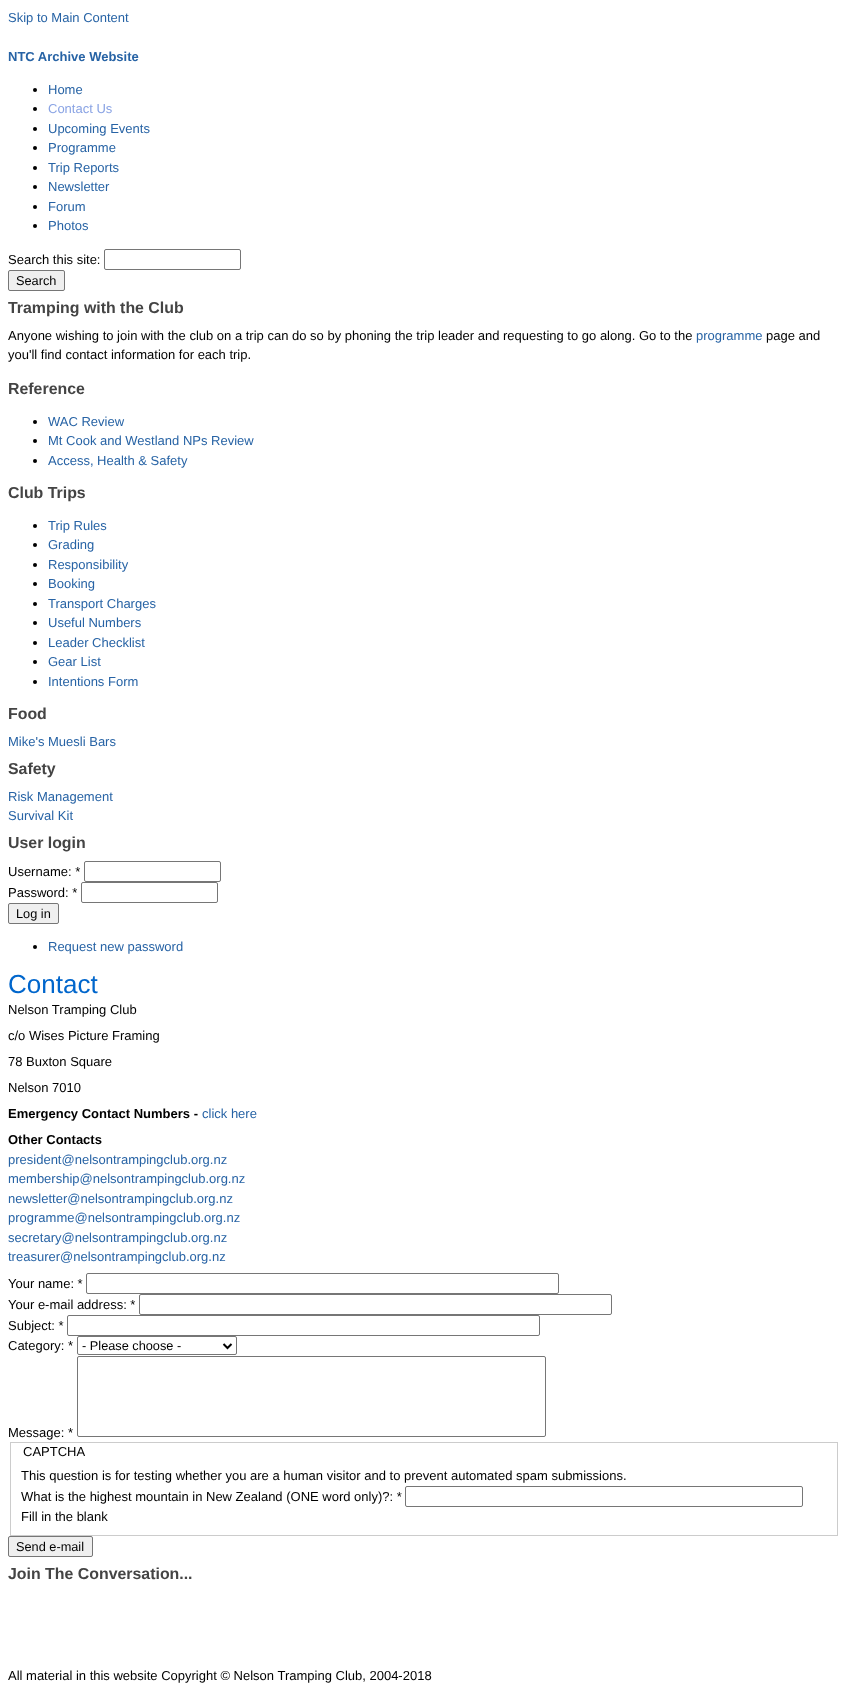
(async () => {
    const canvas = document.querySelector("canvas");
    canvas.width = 848;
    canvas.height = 1693;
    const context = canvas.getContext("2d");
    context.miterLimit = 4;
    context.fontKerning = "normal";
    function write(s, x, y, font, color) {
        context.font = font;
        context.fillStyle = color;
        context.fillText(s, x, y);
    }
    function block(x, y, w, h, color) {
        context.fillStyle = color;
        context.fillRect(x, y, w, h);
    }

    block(0, 0, 848, 1693, "rgb(255, 255, 255)");
    write("Skip to Main Content", 8, 22, "13px Liberation Sans", "rgb(39, 99, 165)");
    write("NTC Archive Website", 8, 61, "bold 13px Liberation Sans", "rgb(39, 99, 165)");
    context.fillStyle = "rgb(0, 0, 0)";
    context.beginPath();
    context.arc(35, 90, 2, 0, Math.PI * 2);
    context.fill();
    write("Home", 48, 94, "13px Liberation Sans", "rgb(39, 99, 165)");
    context.fillStyle = "rgb(0, 0, 0)";
    context.beginPath();
    context.arc(35, 109, 2, 0, Math.PI * 2);
    context.fill();
    write("Contact Us", 48, 113, "13px Liberation Sans", "rgb(137, 163, 228)");
    context.fillStyle = "rgb(0, 0, 0)";
    context.beginPath();
    context.arc(35, 129, 2, 0, Math.PI * 2);
    context.fill();
    write("Upcoming Events", 48, 133, "13px Liberation Sans", "rgb(39, 99, 165)");
    context.fillStyle = "rgb(0, 0, 0)";
    context.beginPath();
    context.arc(35, 148, 2, 0, Math.PI * 2);
    context.fill();
    write("Programme", 48, 152, "13px Liberation Sans", "rgb(39, 99, 165)");
    context.fillStyle = "rgb(0, 0, 0)";
    context.beginPath();
    context.arc(35, 168, 2, 0, Math.PI * 2);
    context.fill();
    write("Trip Reports", 48, 172, "13px Liberation Sans", "rgb(39, 99, 165)");
    context.fillStyle = "rgb(0, 0, 0)";
    context.beginPath();
    context.arc(35, 187, 2, 0, Math.PI * 2);
    context.fill();
    write("Newsletter", 48, 191, "13px Liberation Sans", "rgb(39, 99, 165)");
    context.fillStyle = "rgb(0, 0, 0)";
    context.beginPath();
    context.arc(35, 207, 2, 0, Math.PI * 2);
    context.fill();
    write("Forum", 48, 211, "13px Liberation Sans", "rgb(39, 99, 165)");
    context.fillStyle = "rgb(0, 0, 0)";
    context.beginPath();
    context.arc(35, 226, 2, 0, Math.PI * 2);
    context.fill();
    write("Photos", 48, 230, "13px Liberation Sans", "rgb(39, 99, 165)");
    write("Search this site:", 8, 264, "13px Liberation Sans", "rgb(0, 0, 0)");
    context.beginPath();
    context.roundRect(104.5, 249.5, 136, 20, 1.5);
    context.strokeStyle = "rgb(118, 118, 118)";
    context.stroke();
    context.fillStyle = "rgb(239, 239, 239)";
    context.beginPath();
    context.roundRect(8.5, 270.5, 56, 20, 1.5);
    context.fill();
    context.stroke();
    write("Search", 16, 285, "12.75px Liberation Sans", "rgb(0, 0, 0)");
    write("Tramping with the Club", 8, 313, "bold 15.9px Liberation Sans", "rgb(68, 68, 68)");
    write("Anyone wishing to join with the club on a trip can do so by phoning the trip leader and requesting to go along. Go to the", 8, 340, "13px Liberation Sans", "rgb(0, 0, 0)");
    write("programme", 696, 340, "13px Liberation Sans", "rgb(39, 99, 165)");
    write("page and", 766, 340, "13px Liberation Sans", "rgb(0, 0, 0)");
    write("you'll find contact information for each trip.", 8, 359, "13px Liberation Sans", "rgb(0, 0, 0)");
    write("Reference", 8, 394, "bold 15.9px Liberation Sans", "rgb(68, 68, 68)");
    context.fillStyle = "rgb(0, 0, 0)";
    context.beginPath();
    context.arc(35, 422, 2, 0, Math.PI * 2);
    context.fill();
    write("WAC Review", 48, 426, "13px Liberation Sans", "rgb(39, 99, 165)");
    context.fillStyle = "rgb(0, 0, 0)";
    context.beginPath();
    context.arc(35, 441, 2, 0, Math.PI * 2);
    context.fill();
    write("Mt Cook and Westland NPs Review", 48, 445, "13px Liberation Sans", "rgb(39, 99, 165)");
    context.fillStyle = "rgb(0, 0, 0)";
    context.beginPath();
    context.arc(35, 461, 2, 0, Math.PI * 2);
    context.fill();
    write("Access, Health & Safety", 48, 465, "13px Liberation Sans", "rgb(39, 99, 165)");
    write("Club Trips", 8, 498, "bold 15.9px Liberation Sans", "rgb(68, 68, 68)");
    context.fillStyle = "rgb(0, 0, 0)";
    context.beginPath();
    context.arc(35, 526, 2, 0, Math.PI * 2);
    context.fill();
    write("Trip Rules", 48, 530, "13px Liberation Sans", "rgb(39, 99, 165)");
    context.fillStyle = "rgb(0, 0, 0)";
    context.beginPath();
    context.arc(35, 545, 2, 0, Math.PI * 2);
    context.fill();
    write("Grading", 48, 549, "13px Liberation Sans", "rgb(39, 99, 165)");
    context.fillStyle = "rgb(0, 0, 0)";
    context.beginPath();
    context.arc(35, 565, 2, 0, Math.PI * 2);
    context.fill();
    write("Responsibility", 48, 569, "13px Liberation Sans", "rgb(39, 99, 165)");
    context.fillStyle = "rgb(0, 0, 0)";
    context.beginPath();
    context.arc(35, 584, 2, 0, Math.PI * 2);
    context.fill();
    write("Booking", 48, 588, "13px Liberation Sans", "rgb(39, 99, 165)");
    context.fillStyle = "rgb(0, 0, 0)";
    context.beginPath();
    context.arc(35, 604, 2, 0, Math.PI * 2);
    context.fill();
    write("Transport Charges", 48, 608, "13px Liberation Sans", "rgb(39, 99, 165)");
    context.fillStyle = "rgb(0, 0, 0)";
    context.beginPath();
    context.arc(35, 623, 2, 0, Math.PI * 2);
    context.fill();
    write("Useful Numbers", 48, 627, "13px Liberation Sans", "rgb(39, 99, 165)");
    context.fillStyle = "rgb(0, 0, 0)";
    context.beginPath();
    context.arc(35, 643, 2, 0, Math.PI * 2);
    context.fill();
    write("Leader Checklist", 48, 647, "13px Liberation Sans", "rgb(39, 99, 165)");
    context.fillStyle = "rgb(0, 0, 0)";
    context.beginPath();
    context.arc(35, 662, 2, 0, Math.PI * 2);
    context.fill();
    write("Gear List", 48, 666, "13px Liberation Sans", "rgb(39, 99, 165)");
    context.fillStyle = "rgb(0, 0, 0)";
    context.beginPath();
    context.arc(35, 682, 2, 0, Math.PI * 2);
    context.fill();
    write("Intentions Form", 48, 686, "13px Liberation Sans", "rgb(39, 99, 165)");
    write("Food", 8, 719, "bold 15.9px Liberation Sans", "rgb(68, 68, 68)");
    write("Mike's Muesli Bars", 8, 746, "13px Liberation Sans", "rgb(39, 99, 165)");
    write("Safety", 8, 774, "bold 15.9px Liberation Sans", "rgb(68, 68, 68)");
    write("Risk Management", 8, 801, "13px Liberation Sans", "rgb(39, 99, 165)");
    write("Survival Kit", 8, 820, "13px Liberation Sans", "rgb(39, 99, 165)");
    write("User login", 8, 848, "bold 15.9px Liberation Sans", "rgb(68, 68, 68)");
    write("Username: *", 8, 876, "13px Liberation Sans", "rgb(0, 0, 0)");
    context.beginPath();
    context.roundRect(84.5, 861.5, 136, 20, 1.5);
    context.stroke();
    write("Password: *", 8, 897, "13px Liberation Sans", "rgb(0, 0, 0)");
    context.beginPath();
    context.roundRect(81.5, 882.5, 136, 20, 1.5);
    context.stroke();
    context.fillStyle = "rgb(239, 239, 239)";
    context.beginPath();
    context.roundRect(8.5, 903.5, 50, 20, 1.5);
    context.fill();
    context.stroke();
    write("Log in", 16, 918, "12.75px Liberation Sans", "rgb(0, 0, 0)");
    context.beginPath();
    context.arc(35, 947, 2, 0, Math.PI * 2);
    context.fill();
    write("Request new password", 48, 951, "13px Liberation Sans", "rgb(39, 99, 165)");
    write("Contact", 8, 993, "26px Liberation Sans", "rgb(0, 102, 204)");
    write("Nelson Tramping Club", 8, 1014, "13px Liberation Sans", "rgb(0, 0, 0)");
    write("c/o Wises Picture Framing", 8, 1040, "13px Liberation Sans", "rgb(0, 0, 0)");
    write("78 Buxton Square", 8, 1066, "13px Liberation Sans", "rgb(0, 0, 0)");
    write("Nelson 7010", 8, 1092, "13px Liberation Sans", "rgb(0, 0, 0)");
    write("Emergency Contact Numbers -", 8, 1118, "bold 13px Liberation Sans", "rgb(0, 0, 0)");
    write("click here", 202, 1118, "13px Liberation Sans", "rgb(39, 99, 165)");
    write("Other Contacts", 8, 1144, "bold 13px Liberation Sans", "rgb(0, 0, 0)");
    write("president@nelsontrampingclub.org.nz", 8, 1164, "13px Liberation Sans", "rgb(39, 99, 165)");
    write("membership@nelsontrampingclub.org.nz", 8, 1183, "13px Liberation Sans", "rgb(39, 99, 165)");
    write("newsletter@nelsontrampingclub.org.nz", 8, 1203, "13px Liberation Sans", "rgb(39, 99, 165)");
    write("programme@nelsontrampingclub.org.nz", 8, 1222, "13px Liberation Sans", "rgb(39, 99, 165)");
    write("secretary@nelsontrampingclub.org.nz", 8, 1242, "13px Liberation Sans", "rgb(39, 99, 165)");
    write("treasurer@nelsontrampingclub.org.nz", 8, 1261, "13px Liberation Sans", "rgb(39, 99, 165)");
    write("Your name: *", 8, 1288, "13px Liberation Sans", "rgb(0, 0, 0)");
    context.beginPath();
    context.roundRect(86.5, 1273.5, 472, 20, 1.5);
    context.stroke();
    write("Your e-mail address: *", 8, 1309, "13px Liberation Sans", "rgb(0, 0, 0)");
    context.beginPath();
    context.roundRect(139.5, 1294.5, 472, 20, 1.5);
    context.stroke();
    write("Subject: *", 8, 1330, "13px Liberation Sans", "rgb(0, 0, 0)");
    context.beginPath();
    context.roundRect(67.5, 1315.5, 472, 20, 1.5);
    context.stroke();
    write("Category: *", 8, 1350, "13px Liberation Sans", "rgb(0, 0, 0)");
    context.beginPath();
    context.roundRect(77.5, 1336.5, 159, 18, 1.5);
    context.stroke();
    context.beginPath();
    context.moveTo(223.5, 1344);
    context.lineTo(227.5, 1348);
    context.lineTo(231.5, 1344);
    context.strokeStyle = "rgb(0, 0, 0)";
    context.lineWidth = 2;
    context.stroke();
    write("- Please choose -", 82, 1350, "12.75px Liberation Sans", "rgb(0, 0, 0)");
    write("Message: *", 8, 1437, "13px Liberation Sans", "rgb(0, 0, 0)");
    context.beginPath();
    context.roundRect(77.5, 1356.5, 468, 80, 1.5);
    context.strokeStyle = "rgb(118, 118, 118)";
    context.lineWidth = 1;
    context.stroke();
    context.strokeStyle = "rgb(204, 204, 204)";
    context.strokeRect(10.5, 1442.5, 827, 93);
    write("CAPTCHA", 23, 1456, "13px Liberation Sans", "rgb(0, 0, 0)");
    write("This question is for testing whether you are a human visitor and to prevent automated spam submissions.", 21, 1480, "13px Liberation Sans", "rgb(0, 0, 0)");
    write("What is the highest mountain in New Zealand (ONE word only)?: *", 21, 1501, "13px Liberation Sans", "rgb(0, 0, 0)");
    context.beginPath();
    context.roundRect(405.5, 1486.5, 397, 20, 1.5);
    context.strokeStyle = "rgb(118, 118, 118)";
    context.stroke();
    write("Fill in the blank", 21, 1521, "13px Liberation Sans", "rgb(0, 0, 0)");
    context.fillStyle = "rgb(239, 239, 239)";
    context.beginPath();
    context.roundRect(8.5, 1536.5, 84, 20, 1.5);
    context.fill();
    context.stroke();
    write("Send e-mail", 16, 1551, "12.75px Liberation Sans", "rgb(0, 0, 0)");
    write("Join The Conversation...", 8, 1579, "bold 15.9px Liberation Sans", "rgb(68, 68, 68)");
    write("All material in this website Copyright © Nelson Tramping Club, 2004-2018", 8, 1680, "13px Liberation Sans", "rgb(0, 0, 0)");
})();
